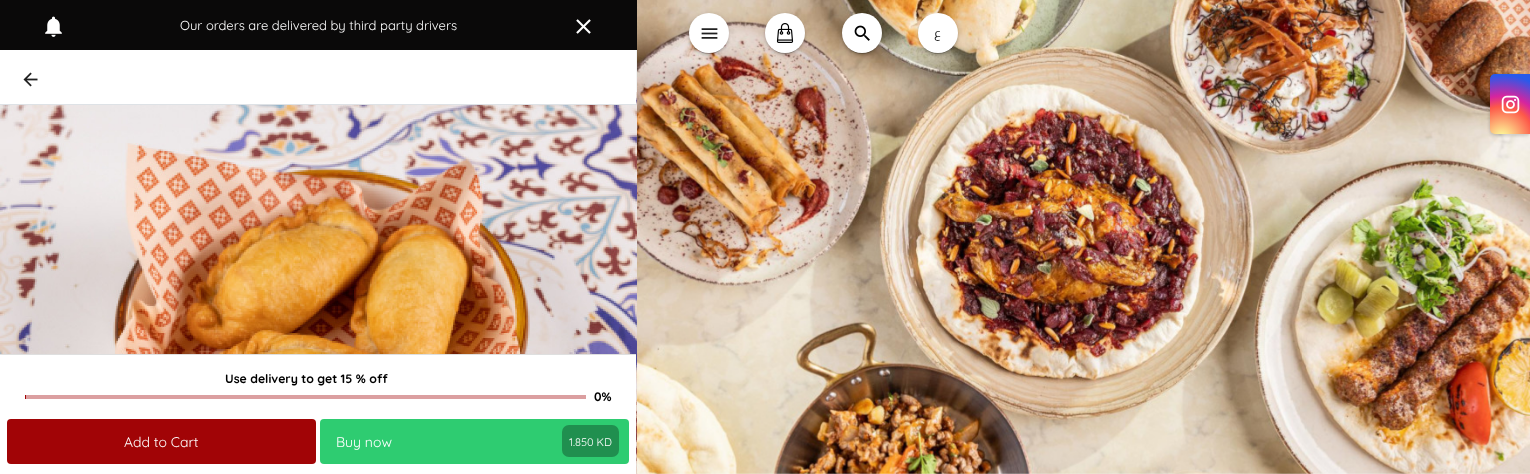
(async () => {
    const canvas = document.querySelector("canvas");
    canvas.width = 1530;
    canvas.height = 474;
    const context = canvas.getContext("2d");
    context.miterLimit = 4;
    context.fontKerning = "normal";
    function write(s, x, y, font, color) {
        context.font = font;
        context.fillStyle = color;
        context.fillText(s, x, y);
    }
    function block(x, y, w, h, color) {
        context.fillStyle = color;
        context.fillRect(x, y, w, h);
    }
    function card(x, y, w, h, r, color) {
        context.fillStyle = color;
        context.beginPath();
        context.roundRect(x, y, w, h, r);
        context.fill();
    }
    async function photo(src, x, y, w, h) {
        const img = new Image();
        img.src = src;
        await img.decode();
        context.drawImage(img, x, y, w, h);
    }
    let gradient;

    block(0, 0, 1530, 474, "rgb(244, 245, 245)");
    block(0, 0, 637, 50, "rgb(10, 9, 9)");
    await photo("media/1.png", 45, 16, 17, 21);
    write("Our orders are delivered by third party drivers", 180, 30, "300 13px 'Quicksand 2'", "rgb(255, 255, 255)");
    await photo("media/2.png", 576, 19, 15, 15);
    await photo("media/4.png", 0, 92, 638, 382);
    block(0, 50, 636, 54, "rgb(255, 255, 255)");
    block(0, 104, 636, 1, "rgb(222, 226, 230)");
    await photo("media/3.png", 23, 72, 15, 15);
    block(0, 355, 636, 119, "rgb(255, 255, 255)");
    block(0, 354, 636, 1, "rgb(223, 223, 223)");
    write("Use delivery to get 15 % off", 225, 383, "300 12.25px Quicksand", "rgb(0, 0, 0)");
    block(25, 395, 561, 4, "rgb(219, 159, 160)");
    block(25, 395, 1, 4, "rgb(161, 4, 6)");
    write("0%", 594, 401, "300 12.25px Quicksand", "rgb(0, 0, 0)");
    card(7, 419, 309, 45, 4, "rgb(161, 4, 6)");
    write("Add to Cart", 124, 447, "300 14px 'Quicksand 2'", "rgb(255, 255, 255)");
    card(320, 419, 309, 45, 4, "rgb(46, 204, 113)");
    write("Buy now", 336, 447, "300 14px 'Quicksand 2'", "rgb(255, 255, 255)");
    card(562, 425, 57, 32, 7, "rgb(32, 143, 79)");
    write("1.850 KD", 569, 446, "300 11px 'Quicksand 2'", "rgb(255, 255, 255)");
    await photo("media/5.png", 637, 0, 893, 474);
    context.fillStyle = "rgba(0, 0, 0, 0.12)";
    context.filter = "blur(2.5px)";
    context.beginPath();
    context.roundRect(689, 14, 40, 40, 20);
    context.fill();
    context.filter = "none";
    context.fillStyle = "rgba(0, 0, 0, 0.14)";
    context.filter = "blur(1px)";
    context.beginPath();
    context.roundRect(689, 15, 40, 40, 20);
    context.fill();
    context.filter = "none";
    context.fillStyle = "rgba(0, 0, 0, 0.2)";
    context.filter = "blur(0.5px)";
    context.beginPath();
    context.roundRect(691, 18, 36, 36, 18);
    context.fill();
    context.filter = "none";
    context.fillStyle = "rgb(255, 255, 255)";
    context.beginPath();
    context.arc(709, 33, 20, 0, Math.PI * 2);
    context.fill();
    await photo("media/6.png", 701, 28, 17, 11);
    context.fillStyle = "rgba(0, 0, 0, 0.12)";
    context.filter = "blur(2.5px)";
    context.beginPath();
    context.roundRect(765, 14, 40, 40, 20);
    context.fill();
    context.filter = "none";
    context.fillStyle = "rgba(0, 0, 0, 0.14)";
    context.filter = "blur(1px)";
    context.beginPath();
    context.roundRect(765, 15, 40, 40, 20);
    context.fill();
    context.filter = "none";
    context.fillStyle = "rgba(0, 0, 0, 0.2)";
    context.filter = "blur(0.5px)";
    context.beginPath();
    context.roundRect(767, 18, 36, 36, 18);
    context.fill();
    context.filter = "none";
    context.fillStyle = "rgb(255, 255, 255)";
    context.beginPath();
    context.arc(785, 33, 20, 0, Math.PI * 2);
    context.fill();
    await photo("media/7.png", 776, 23, 18, 20);
    context.fillStyle = "rgba(0, 0, 0, 0.12)";
    context.filter = "blur(2.5px)";
    context.beginPath();
    context.roundRect(842, 14, 40, 40, 20);
    context.fill();
    context.filter = "none";
    context.fillStyle = "rgba(0, 0, 0, 0.14)";
    context.filter = "blur(1px)";
    context.beginPath();
    context.roundRect(842, 15, 40, 40, 20);
    context.fill();
    context.filter = "none";
    context.fillStyle = "rgba(0, 0, 0, 0.2)";
    context.filter = "blur(0.5px)";
    context.beginPath();
    context.roundRect(844, 18, 36, 36, 18);
    context.fill();
    context.filter = "none";
    context.fillStyle = "rgb(255, 255, 255)";
    context.beginPath();
    context.arc(862, 33, 20, 0, Math.PI * 2);
    context.fill();
    await photo("media/8.png", 854, 25, 16, 16);
    context.fillStyle = "rgba(0, 0, 0, 0.12)";
    context.filter = "blur(2.5px)";
    context.beginPath();
    context.roundRect(918, 14, 40, 40, 20);
    context.fill();
    context.filter = "none";
    context.fillStyle = "rgba(0, 0, 0, 0.14)";
    context.filter = "blur(1px)";
    context.beginPath();
    context.roundRect(918, 15, 40, 40, 20);
    context.fill();
    context.filter = "none";
    context.fillStyle = "rgba(0, 0, 0, 0.2)";
    context.filter = "blur(0.5px)";
    context.beginPath();
    context.roundRect(920, 18, 36, 36, 18);
    context.fill();
    context.filter = "none";
    context.fillStyle = "rgb(255, 255, 255)";
    context.beginPath();
    context.arc(938, 33, 20, 0, Math.PI * 2);
    context.fill();
    context.direction = "rtl";
    write("ع", 941, 37, "12.25px Cairo", "rgb(33, 33, 33)");
    context.fillStyle = "rgba(0, 0, 0, 0.15)";
    context.filter = "blur(1.5px)";
    context.beginPath();
    context.roundRect(1489, 74, 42, 62, 6);
    context.fill();
    context.filter = "none";
    gradient = context.createRadialGradient(1502, 138, 0, 1502, 138, 70);
    gradient.addColorStop(0, "rgb(253, 244, 151)");
    gradient.addColorStop(0.05, "rgb(253, 244, 151)");
    gradient.addColorStop(0.45, "rgb(253, 89, 73)");
    gradient.addColorStop(0.6, "rgb(214, 36, 159)");
    gradient.addColorStop(0.9, "rgb(40, 90, 235)");
    context.fillStyle = gradient;
    context.beginPath();
    context.roundRect(1490, 74, 40, 60, [5, 0, 0, 5]);
    context.fill();
    await photo("media/9.png", 1501, 95, 19, 19);
})();
